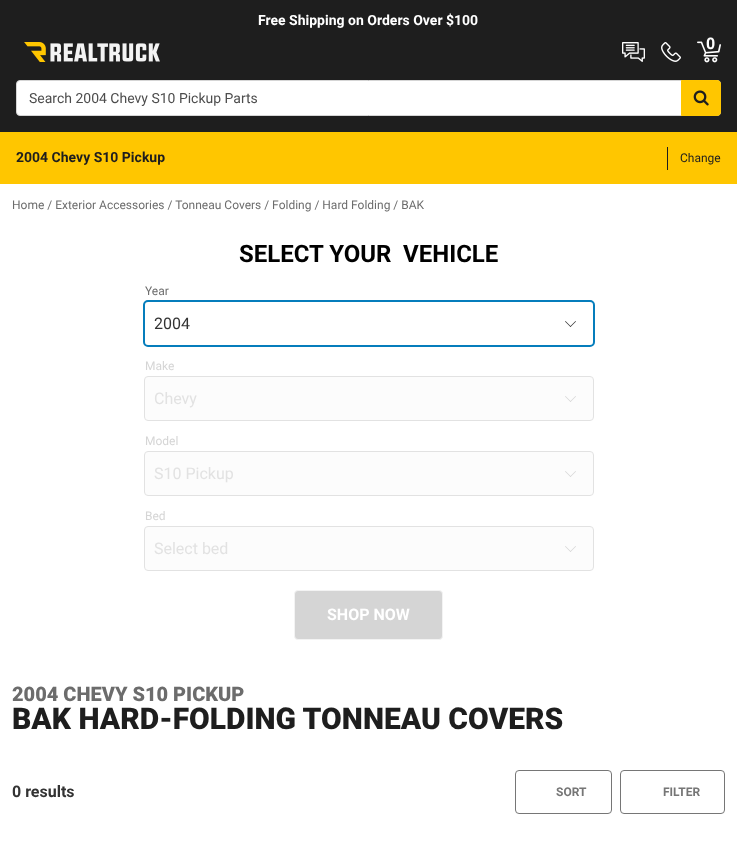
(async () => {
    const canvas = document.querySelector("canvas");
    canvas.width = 737;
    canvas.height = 858;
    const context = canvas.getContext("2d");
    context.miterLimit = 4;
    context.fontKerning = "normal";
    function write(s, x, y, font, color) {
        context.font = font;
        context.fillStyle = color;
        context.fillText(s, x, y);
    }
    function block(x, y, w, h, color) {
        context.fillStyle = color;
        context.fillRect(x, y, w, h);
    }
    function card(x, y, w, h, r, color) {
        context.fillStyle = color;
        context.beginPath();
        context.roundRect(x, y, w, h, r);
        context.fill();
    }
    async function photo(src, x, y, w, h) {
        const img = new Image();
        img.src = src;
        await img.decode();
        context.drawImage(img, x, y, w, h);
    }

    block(0, 0, 737, 858, "rgb(255, 255, 255)");
    block(0, 0, 737, 132, "rgb(30, 30, 30)");
    write("Free Shipping on Orders Over $100", 258, 25, "bold 14px Roboto", "rgb(255, 255, 255)");
    await photo("media/1.png", 24, 42, 136, 20);
    await photo("media/2.png", 622, 42, 23, 20);
    await photo("media/3.png", 661, 42, 20, 20);
    await photo("media/4.png", 697, 41, 24, 22);
    write("0", 706, 49, "bold 16px Roboto", "rgb(255, 255, 255)");
    context.beginPath();
    context.roundRect(16.5, 80.5, 704, 35, 3.5);
    context.fill();
    context.strokeStyle = "rgb(213, 213, 213)";
    context.stroke();
    write("Search 2004 Chevy S10 Pickup Parts", 29, 103, "14px Roboto", "rgb(77, 77, 77)");
    context.fillStyle = "rgb(255, 198, 0)";
    context.beginPath();
    context.roundRect(681.5, 80.5, 39, 35, [0, 3.5, 3.5, 0]);
    context.fill();
    context.strokeStyle = "rgb(255, 198, 0)";
    context.stroke();
    await photo("media/5.png", 693, 90, 16, 16);
    block(0, 132, 737, 52, "rgb(255, 198, 0)");
    write("2004 Chevy S10 Pickup", 16, 162, "bold 14px Roboto", "rgb(30, 30, 30)");
    block(667, 147, 1, 23, "rgb(30, 30, 30)");
    write("Change", 680, 162, "12px Roboto", "rgb(30, 30, 30)");
    write("Home / Exterior Accessories / Tonneau Covers / Folding / Hard Folding / BAK", 12, 209, "12px Roboto", "rgb(108, 108, 108)");
    write("SELECT YOUR", 239, 262, "bold 24px Roboto", "rgb(0, 0, 0)");
    write("VEHICLE", 403, 262, "bold 24px Roboto", "rgb(0, 0, 0)");
    write("Year", 145, 295, "12px Roboto", "rgb(108, 108, 108)");
    context.beginPath();
    context.roundRect(144, 301, 450, 45, 4);
    context.strokeStyle = "rgb(5, 125, 188)";
    context.lineWidth = 2;
    context.stroke();
    write("2004", 154, 329, "16px Roboto", "rgb(51, 51, 51)");
    context.beginPath();
    context.moveTo(570, 326.5);
    context.lineTo(575.5, 321);
    context.lineTo(576, 321.5);
    context.lineTo(570.5, 327);
    context.closePath();
    context.fill();
    context.beginPath();
    context.moveTo(565, 321.5);
    context.lineTo(565.5, 321);
    context.lineTo(571, 326.5);
    context.lineTo(570.5, 327);
    context.closePath();
    context.fill();
    write("Make", 145, 370, "12px Roboto", "rgb(213, 213, 213)");
    card(145, 377, 448, 43, 3, "rgb(252, 252, 252)");
    context.beginPath();
    context.roundRect(144.5, 376.5, 449, 44, 3.5);
    context.strokeStyle = "rgb(226, 226, 226)";
    context.lineWidth = 1;
    context.stroke();
    write("Chevy", 154, 404, "16px Roboto", "rgb(226, 226, 226)");
    context.fillStyle = "rgb(213, 213, 213)";
    context.beginPath();
    context.moveTo(570, 401.5);
    context.lineTo(575.5, 396);
    context.lineTo(576, 396.5);
    context.lineTo(570.5, 402);
    context.closePath();
    context.fill();
    context.beginPath();
    context.moveTo(565, 396.5);
    context.lineTo(565.5, 396);
    context.lineTo(571, 401.5);
    context.lineTo(570.5, 402);
    context.closePath();
    context.fill();
    write("Model", 145, 445, "12px Roboto", "rgb(213, 213, 213)");
    card(145, 452, 448, 43, 3, "rgb(252, 252, 252)");
    context.beginPath();
    context.roundRect(144.5, 451.5, 449, 44, 3.5);
    context.stroke();
    write("S10 Pickup", 154, 479, "16px Roboto", "rgb(226, 226, 226)");
    context.fillStyle = "rgb(213, 213, 213)";
    context.beginPath();
    context.moveTo(570, 476.5);
    context.lineTo(575.5, 471);
    context.lineTo(576, 471.5);
    context.lineTo(570.5, 477);
    context.closePath();
    context.fill();
    context.beginPath();
    context.moveTo(565, 471.5);
    context.lineTo(565.5, 471);
    context.lineTo(571, 476.5);
    context.lineTo(570.5, 477);
    context.closePath();
    context.fill();
    write("Bed", 145, 520, "12px Roboto", "rgb(213, 213, 213)");
    card(145, 527, 448, 43, 3, "rgb(252, 252, 252)");
    context.beginPath();
    context.roundRect(144.5, 526.5, 449, 44, 3.5);
    context.stroke();
    write("Select bed", 154, 554, "16px Roboto", "rgb(226, 226, 226)");
    context.fillStyle = "rgb(213, 213, 213)";
    context.beginPath();
    context.moveTo(570, 551.5);
    context.lineTo(575.5, 546);
    context.lineTo(576, 546.5);
    context.lineTo(570.5, 552);
    context.closePath();
    context.fill();
    context.beginPath();
    context.moveTo(565, 546.5);
    context.lineTo(565.5, 546);
    context.lineTo(571, 551.5);
    context.lineTo(570.5, 552);
    context.closePath();
    context.fill();
    context.beginPath();
    context.roundRect(294.5, 590.5, 148, 49, 3.5);
    context.fill();
    context.strokeStyle = "rgb(243, 243, 243)";
    context.stroke();
    write("SHOP NOW", 327, 620, "bold 16px Roboto", "rgb(255, 255, 255)");
    write("2004 CHEVY S10 PICKUP", 12, 701, "900 20px Roboto", "rgb(108, 108, 108)");
    write("BAK HARD-FOLDING TONNEAU COVERS", 12, 729, "900 30px Roboto", "rgb(30, 30, 30)");
    write("0 results", 12, 797, "bold 16px Roboto", "rgb(51, 51, 51)");
    context.beginPath();
    context.roundRect(515.5, 770.5, 96, 43, 3.5);
    context.strokeStyle = "rgb(118, 118, 118)";
    context.stroke();
    write("SORT", 556, 796, "bold 12px Roboto", "rgb(118, 118, 118)");
    context.beginPath();
    context.roundRect(620.5, 770.5, 104, 43, 3.5);
    context.stroke();
    write("FILTER", 663, 796, "bold 12px Roboto", "rgb(118, 118, 118)");
})();
